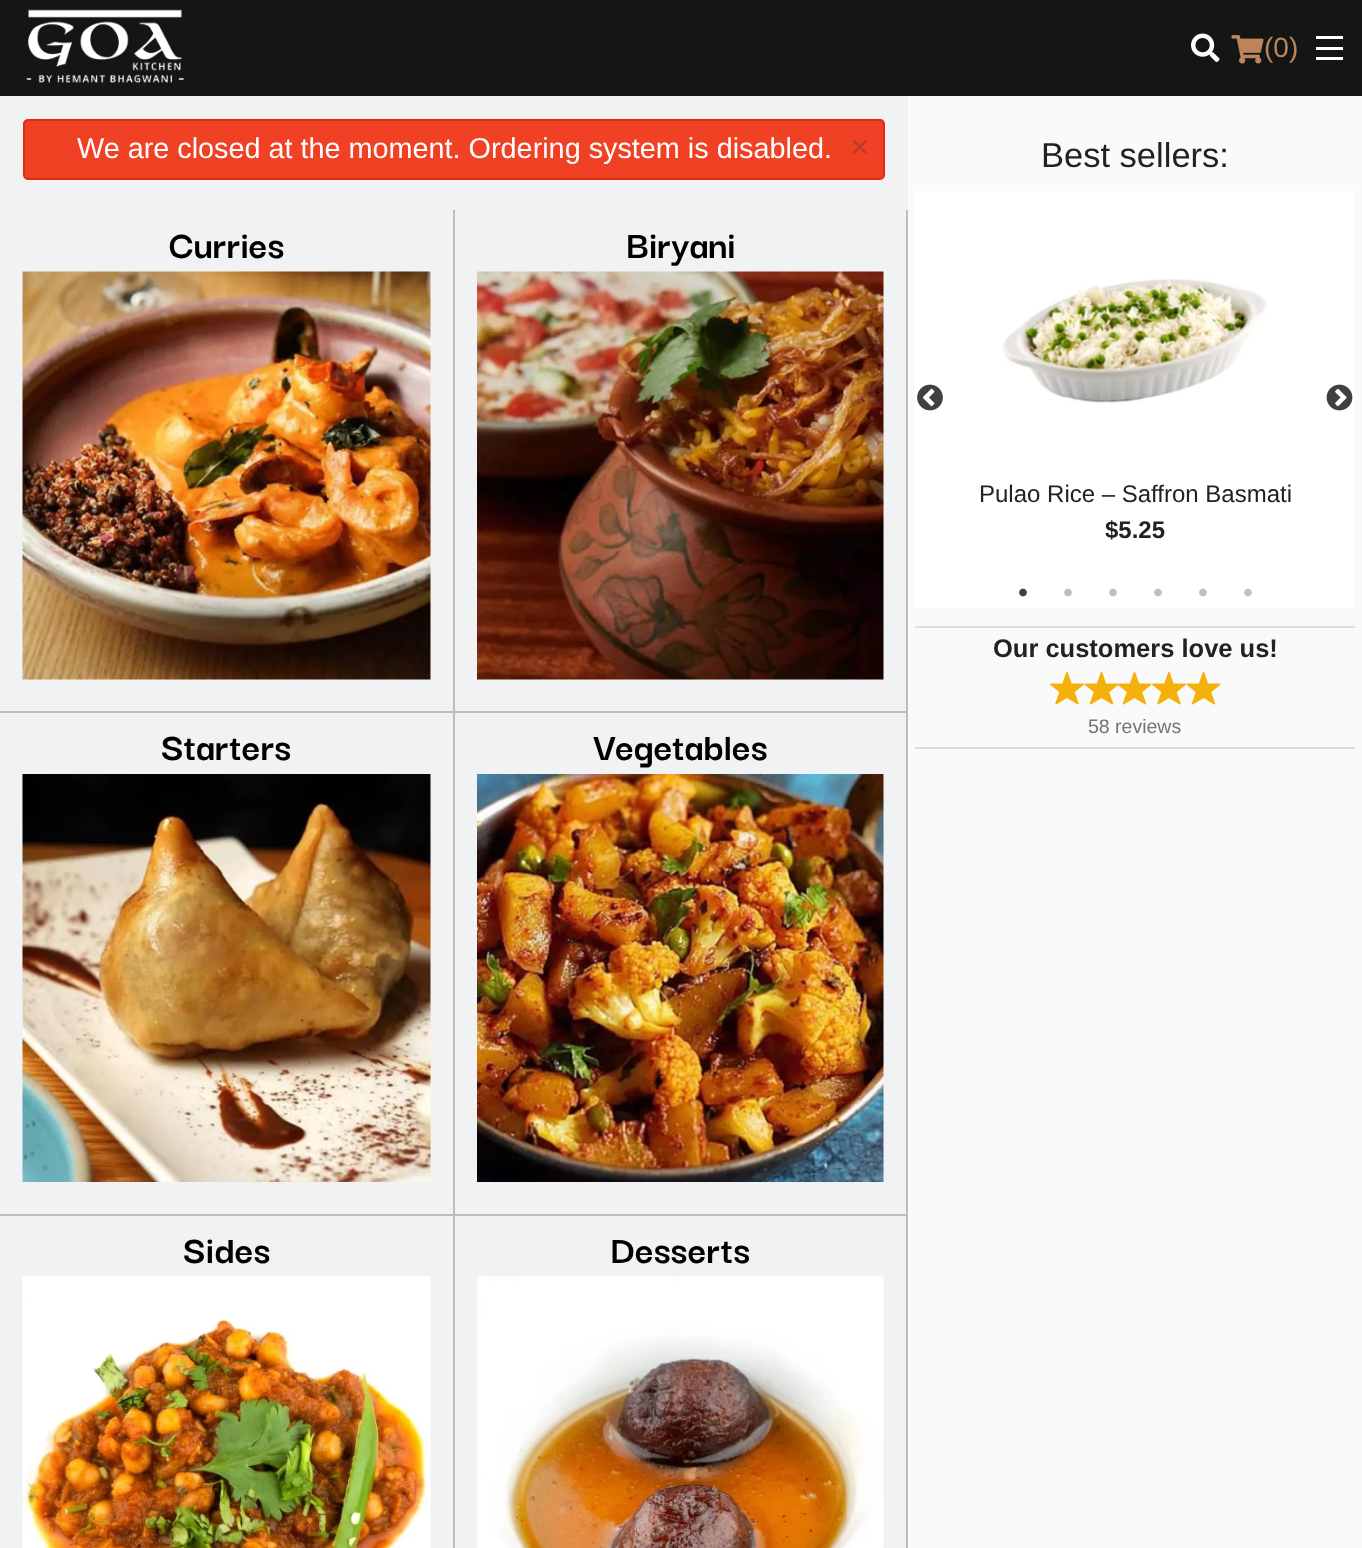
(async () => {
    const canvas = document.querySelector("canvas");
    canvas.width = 1362;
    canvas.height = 1548;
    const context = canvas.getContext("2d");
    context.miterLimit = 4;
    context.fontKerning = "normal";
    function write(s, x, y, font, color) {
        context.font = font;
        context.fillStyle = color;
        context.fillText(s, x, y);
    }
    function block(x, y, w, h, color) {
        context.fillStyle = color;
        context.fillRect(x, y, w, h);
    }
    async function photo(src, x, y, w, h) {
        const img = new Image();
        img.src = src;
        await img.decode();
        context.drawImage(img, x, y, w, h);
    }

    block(0, 0, 1362, 1548, "rgb(241, 242, 243)");
    block(0, 0, 1362, 96, "rgb(20, 22, 22)");
    await photo("media/1.png", 26, 9, 159, 74);
    await photo("media/2.png", 1191, 33, 29, 29);
    await photo("media/3.png", 1231, 35, 33, 29);
    write("(0)", 1264, 57, "28px Liberation Sans", "rgb(188, 133, 91)");
    block(1316, 57, 27, 3, "rgb(255, 255, 255)");
    block(1316, 47, 27, 3, "rgb(255, 255, 255)");
    block(1316, 36, 27, 3, "rgb(255, 255, 255)");
    context.fillStyle = "rgb(240, 65, 36)";
    context.beginPath();
    context.roundRect(24, 120, 860, 59, 4);
    context.fill();
    context.strokeStyle = "rgb(222, 45, 15)";
    context.lineWidth = 2;
    context.stroke();
    write("We are closed at the moment. Ordering system is disabled.", 77, 158, "28.8px Liberation Sans", "rgb(255, 255, 255)");
    write("×", 850, 158, "33px Liberation Sans", "rgb(183, 61, 41)");
    block(453, 210, 2, 1005, "rgb(189, 189, 189)");
    block(0, 711, 455, 2, "rgb(189, 189, 189)");
    write("Curries", 169, 258, "300 41px Darker Grotesque", "rgb(0, 0, 0)");
    await photo("media/4.png", 22, 271, 409, 409);
    block(906, 210, 2, 1005, "rgb(189, 189, 189)");
    block(455, 711, 453, 2, "rgb(189, 189, 189)");
    write("Biryani", 626, 258, "300 41px Darker Grotesque", "rgb(0, 0, 0)");
    await photo("media/5.png", 477, 271, 407, 409);
    block(0, 1214, 908, 2, "rgb(189, 189, 189)");
    write("Starters", 161, 760, "300 41px Darker Grotesque", "rgb(0, 0, 0)");
    await photo("media/6.png", 22, 774, 409, 408);
    write("Vegetables", 593, 760, "300 41px Darker Grotesque", "rgb(0, 0, 0)");
    await photo("media/7.png", 477, 774, 407, 408);
    block(453, 1215, 2, 333, "rgb(189, 189, 189)");
    write("Sides", 183, 1263, "300 41px Darker Grotesque", "rgb(0, 0, 0)");
    await photo("media/8.png", 22, 1276, 409, 272);
    block(906, 1215, 2, 333, "rgb(189, 189, 189)");
    write("Desserts", 610, 1263, "300 41px Darker Grotesque", "rgb(0, 0, 0)");
    await photo("media/9.png", 477, 1276, 407, 272);
    block(908, 96, 454, 1452, "rgb(250, 250, 250)");
    write("Best sellers:", 1041, 167, "34.5px Liberation Sans", "rgb(34, 34, 34)");
    block(915, 191, 440, 417, "rgb(255, 255, 255)");
    await photo("media/10.png", 917, 384, 26, 27);
    await photo("media/11.png", 1326, 384, 27, 27);
    await photo("media/12.png", 1003, 278, 265, 126);
    write("Pulao Rice – Saffron Basmati", 979, 502, "24px Liberation Sans", "rgb(34, 34, 34)");
    write("$5.25", 1105, 538, "bold 24px Liberation Sans", "rgb(34, 34, 34)");
    await photo("media/13.png", 1019, 588, 8, 9);
    await photo("media/14.png", 1064, 588, 8, 9);
    await photo("media/14.png", 1109, 588, 8, 9);
    await photo("media/14.png", 1154, 588, 8, 9);
    await photo("media/14.png", 1199, 588, 8, 9);
    await photo("media/14.png", 1244, 588, 8, 9);
    block(915, 626, 440, 2, "rgb(221, 221, 221)");
    write("Our customers love us!", 993, 657, "bold 25.5px Liberation Sans", "rgb(34, 34, 34)");
    await photo("media/15.png", 1050, 671, 34, 34);
    await photo("media/16.png", 1084, 671, 35, 34);
    await photo("media/17.png", 1117, 671, 35, 34);
    await photo("media/15.png", 1152, 671, 34, 34);
    await photo("media/16.png", 1186, 671, 35, 34);
    write("58 reviews", 1088, 733, "19.5px Liberation Sans", "rgb(115, 115, 115)");
    block(915, 747, 440, 2, "rgb(221, 221, 221)");
})();
